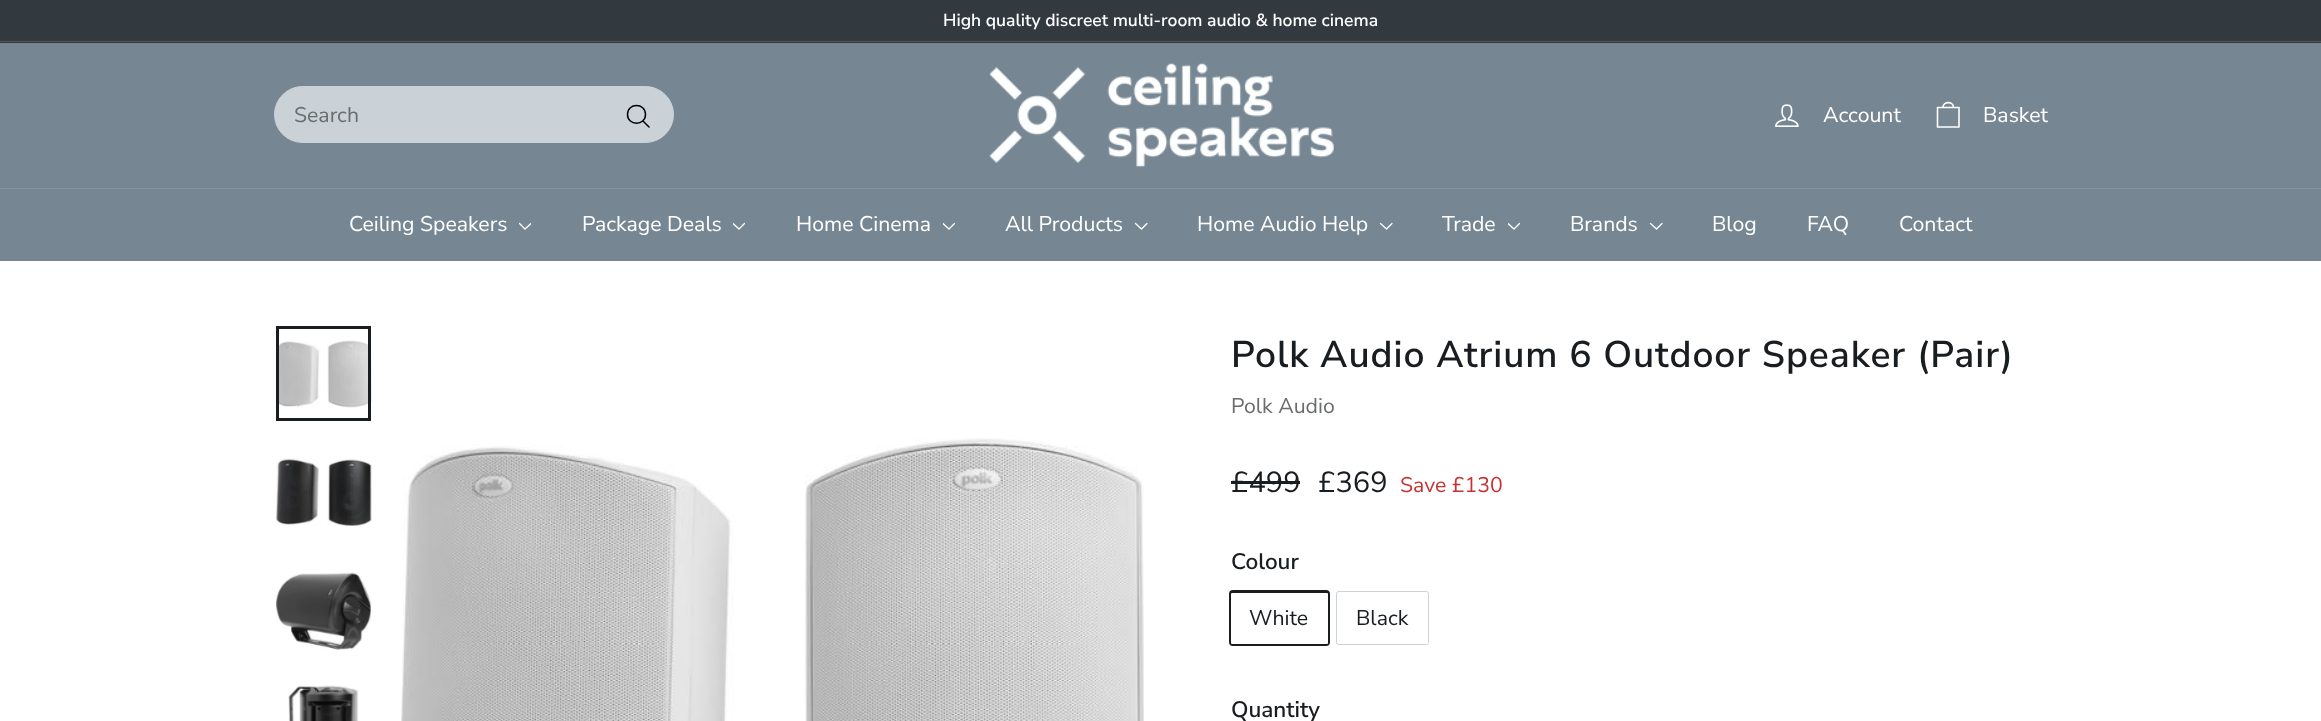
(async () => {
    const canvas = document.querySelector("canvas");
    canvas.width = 2321;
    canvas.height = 721;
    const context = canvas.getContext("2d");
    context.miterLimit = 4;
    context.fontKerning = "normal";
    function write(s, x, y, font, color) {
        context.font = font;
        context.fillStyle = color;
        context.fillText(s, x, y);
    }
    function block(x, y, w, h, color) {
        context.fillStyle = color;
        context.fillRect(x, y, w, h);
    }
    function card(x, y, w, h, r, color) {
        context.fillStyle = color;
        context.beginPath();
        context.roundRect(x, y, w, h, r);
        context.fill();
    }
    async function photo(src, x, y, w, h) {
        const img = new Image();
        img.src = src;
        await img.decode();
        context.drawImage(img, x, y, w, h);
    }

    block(0, 0, 2321, 721, "rgb(255, 255, 255)");
    block(0, 0, 2321, 43, "rgb(50, 58, 64)");
    write("High quality discreet multi-room audio & home cinema", 943, 26, "600 17.5px Nunito Sans", "rgb(255, 255, 255)");
    block(0, 41, 2321, 1, "rgb(81, 88, 93)");
    block(0, 43, 2321, 145, "rgb(118, 135, 147)");
    context.fillStyle = "rgb(202, 210, 215)";
    context.beginPath();
    context.roundRect(274.5, 86.5, 399, 56, 28);
    context.fill();
    context.strokeStyle = "rgb(202, 210, 215)";
    context.stroke();
    write("Search", 294, 122, "21.25px Nunito Sans", "rgb(106, 108, 110)");
    context.beginPath();
    context.moveTo(645.5, 114.5);
    context.bezierCurveTo(645.5, 126, 627.5, 126, 627.5, 114.5);
    context.bezierCurveTo(627.5, 102.5, 645.5, 102.5, 645.5, 114.5);
    context.closePath();
    context.moveTo(649, 127);
    context.lineTo(643, 121);
    context.strokeStyle = "rgb(0, 0, 0)";
    context.lineWidth = 1.5;
    context.lineCap = "round";
    context.lineJoin = "round";
    context.stroke();
    await photo("media/1.png", 989, 63, 345, 104);
    await photo("media/2.png", 1775, 104, 24, 23);
    write("Account", 1823, 122, "21.25px Nunito Sans", "rgb(255, 255, 255)");
    context.beginPath();
    context.moveTo(1943, 107.5);
    context.bezierCurveTo(1943, 101, 1953.5, 101, 1953.5, 107.5);
    context.moveTo(1937.5, 107.5);
    context.lineTo(1959, 107.5);
    context.lineTo(1959, 127);
    context.lineTo(1937.5, 127);
    context.closePath();
    context.strokeStyle = "rgb(255, 255, 255)";
    context.lineWidth = 1.6;
    context.stroke();
    write("Basket", 1983, 122, "21.25px Nunito Sans", "rgb(255, 255, 255)");
    block(0, 188, 2321, 1, "rgb(132, 147, 158)");
    block(0, 189, 2321, 72, "rgb(118, 135, 147)");
    write("Ceiling Speakers", 349, 231, "21.25px Nunito Sans", "rgb(255, 255, 255)");
    context.save();
    context.beginPath();
    context.rect(519, 220, 12, 13);
    context.clip();
    context.beginPath();
    context.moveTo(519.5, 223.5);
    context.lineTo(525, 229);
    context.lineTo(531, 223.5);
    context.lineWidth = 1.3;
    context.stroke();
    context.restore();
    write("Package Deals", 582, 231, "21.25px Nunito Sans", "rgb(255, 255, 255)");
    context.save();
    context.beginPath();
    context.rect(733, 220, 12, 13);
    context.clip();
    context.beginPath();
    context.moveTo(733, 223.5);
    context.lineTo(739, 229);
    context.lineTo(744.5, 223.5);
    context.lineWidth = 1.3;
    context.stroke();
    context.restore();
    write("Home Cinema", 796, 231, "21.25px Nunito Sans", "rgb(255, 255, 255)");
    context.save();
    context.beginPath();
    context.rect(943, 220, 12, 13);
    context.clip();
    context.beginPath();
    context.moveTo(943, 223.5);
    context.lineTo(949, 229);
    context.lineTo(954.5, 223.5);
    context.lineWidth = 1.3;
    context.stroke();
    context.restore();
    write("All Products", 1005, 231, "21.25px Nunito Sans", "rgb(255, 255, 255)");
    context.beginPath();
    context.moveTo(1135.5, 223.5);
    context.lineTo(1141.5, 229);
    context.lineTo(1147, 223.5);
    context.lineWidth = 1.3;
    context.stroke();
    write("Home Audio Help", 1197, 231, "21.25px Nunito Sans", "rgb(255, 255, 255)");
    context.beginPath();
    context.moveTo(1380.5, 223.5);
    context.lineTo(1386.5, 229);
    context.lineTo(1392, 223.5);
    context.stroke();
    write("Trade", 1442, 231, "21.25px Nunito Sans", "rgb(255, 255, 255)");
    context.save();
    context.beginPath();
    context.rect(1508, 220, 12, 13);
    context.clip();
    context.beginPath();
    context.moveTo(1508, 223.5);
    context.lineTo(1514, 229);
    context.lineTo(1519.5, 223.5);
    context.stroke();
    context.restore();
    write("Brands", 1570, 231, "21.25px Nunito Sans", "rgb(255, 255, 255)");
    context.beginPath();
    context.moveTo(1650.5, 223.5);
    context.lineTo(1656.5, 229);
    context.lineTo(1662, 223.5);
    context.stroke();
    write("Blog", 1712, 231, "21.25px Nunito Sans", "rgb(255, 255, 255)");
    write("FAQ", 1807, 231, "21.25px Nunito Sans", "rgb(255, 255, 255)");
    write("Contact", 1899, 231, "21.25px Nunito Sans", "rgb(255, 255, 255)");
    await photo("media/3.png", 279, 340, 93, 68);
    context.strokeStyle = "rgb(25, 29, 32)";
    context.lineWidth = 3;
    context.lineJoin = "miter";
    context.strokeRect(277.5, 327.5, 92, 92);
    await photo("media/4.png", 276, 458, 96, 68);
    await photo("media/5.png", 276, 572, 95, 78);
    await photo("media/6.png", 288, 685, 71, 36);
    await photo("media/7.png", 401, 438, 743, 283);
    context.letterSpacing = "0.95px";
    write("Polk Audio Atrium 6 Outdoor Speaker (Pair)", 1231, 367, "600 37.2px Nunito Sans", "rgb(25, 29, 32)");
    context.letterSpacing = "0px";
    write("Polk Audio", 1231, 413, "21.25px Nunito Sans", "rgb(106, 108, 110)");
    write("£499", 1231, 492, "29px Nunito Sans", "rgb(25, 29, 32)");
    block(1231, 481, 69, 3, "rgb(25, 29, 32)");
    write("£369", 1318, 492, "29px Nunito Sans", "rgb(25, 29, 32)");
    write("Save £130", 1400, 492, "21.25px Nunito Sans", "rgb(199, 50, 50)");
    write("Colour", 1231, 569, "600 22.5px Nunito Sans", "rgb(25, 29, 32)");
    context.beginPath();
    context.roundRect(1230.5, 591.5, 98, 53, 2.5);
    context.stroke();
    card(1231, 593, 97, 51, 1, "rgb(255, 255, 255)");
    write("White", 1249, 625, "21.25px Nunito Sans", "rgb(25, 29, 32)");
    context.beginPath();
    context.roundRect(1336.5, 591.5, 92, 53, 2);
    context.strokeStyle = "rgb(202, 210, 215)";
    context.lineWidth = 1;
    context.stroke();
    card(1338, 593, 90, 51, 1, "rgb(255, 255, 255)");
    write("Black", 1356, 625, "21.25px Nunito Sans", "rgb(25, 29, 32)");
    write("Quantity", 1231, 717, "600 22.5px Nunito Sans", "rgb(25, 29, 32)");
})();
